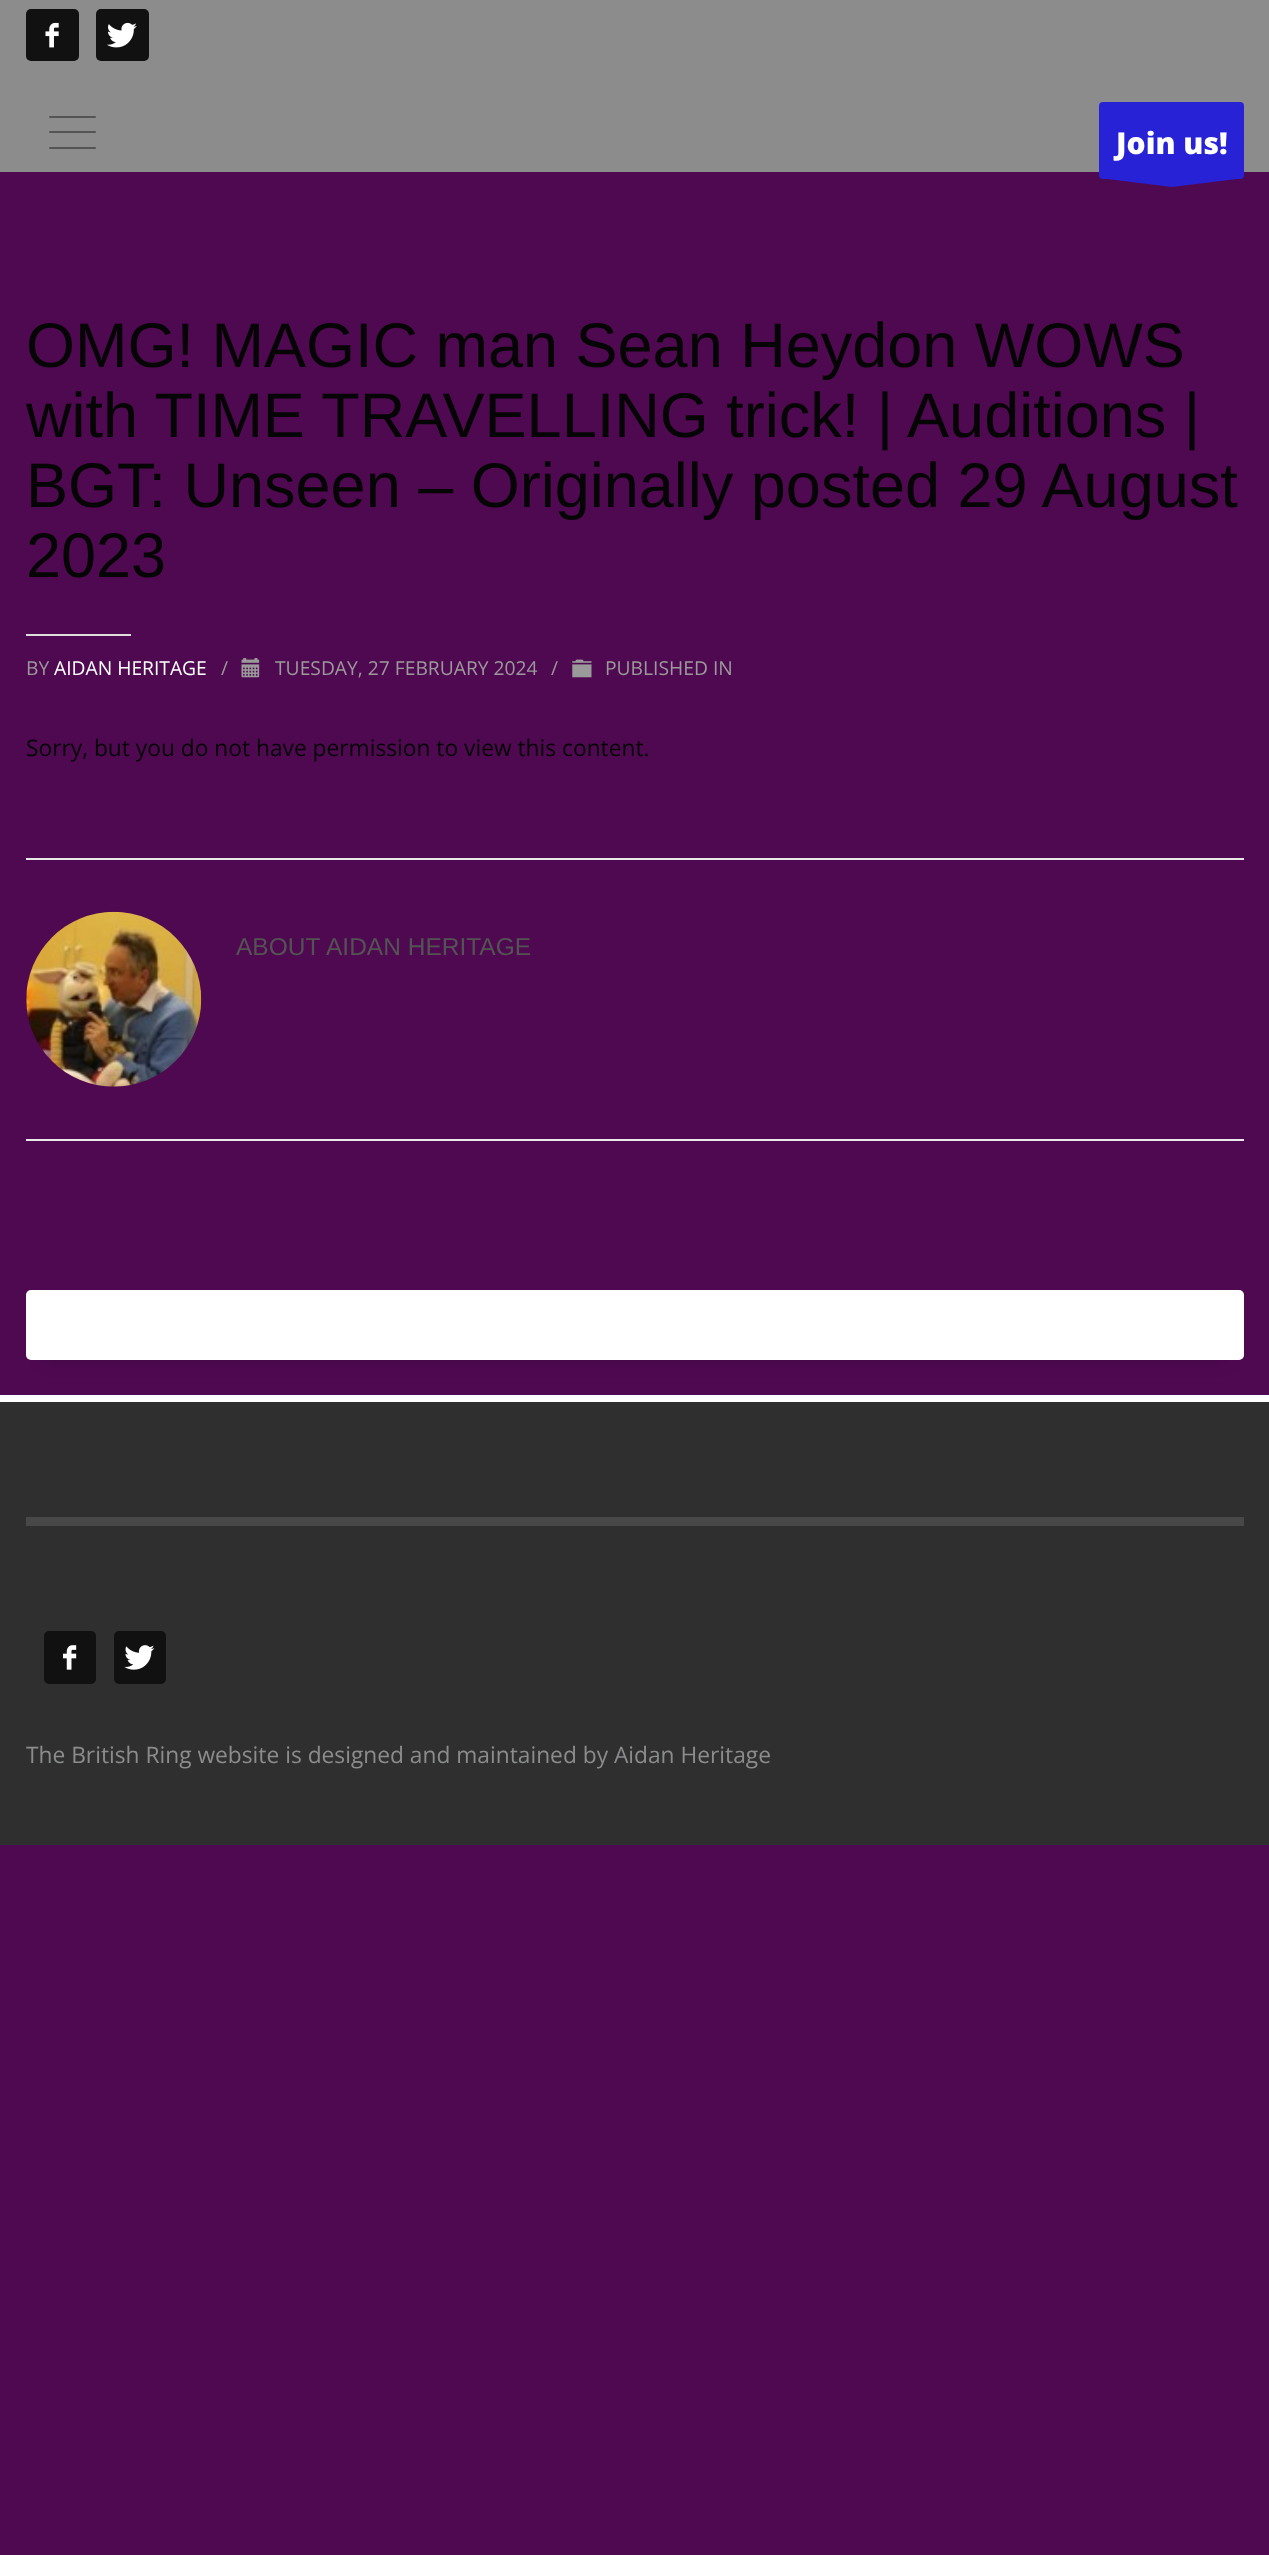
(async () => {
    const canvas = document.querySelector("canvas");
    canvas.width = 1269;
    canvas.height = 2555;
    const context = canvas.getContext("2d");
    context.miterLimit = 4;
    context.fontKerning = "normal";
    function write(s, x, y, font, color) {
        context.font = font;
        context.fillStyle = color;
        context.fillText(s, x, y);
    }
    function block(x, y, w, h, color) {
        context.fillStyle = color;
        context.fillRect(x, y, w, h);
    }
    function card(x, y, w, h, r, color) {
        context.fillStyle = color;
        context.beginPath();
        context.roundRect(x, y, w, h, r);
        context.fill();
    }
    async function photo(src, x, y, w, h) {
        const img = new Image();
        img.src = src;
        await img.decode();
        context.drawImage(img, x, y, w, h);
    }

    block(0, 0, 1269, 2555, "rgb(79, 9, 81)");
    block(0, 0, 1269, 172, "rgb(140, 140, 140)");
    card(26, 9, 53, 52, 5, "rgb(17, 17, 17)");
    await photo("media/1.png", 45, 22, 14, 26);
    card(96, 9, 53, 52, 5, "rgb(17, 17, 17)");
    await photo("media/2.png", 107, 22, 30, 26);
    card(49, 116, 47, 2, 1, "rgb(84, 84, 84)");
    card(49, 131, 47, 2, 1, "rgb(84, 84, 84)");
    card(49, 147, 47, 2, 1, "rgb(84, 84, 84)");
    card(1099, 102, 145, 77, 4, "rgb(40, 34, 214)");
    write("Join us!", 1116, 154, "800 30px Open Sans", "rgb(255, 255, 255)");
    context.save();
    context.beginPath();
    context.rect(1099, 179, 145, 8);
    context.clip();
    context.fillStyle = "rgb(40, 34, 214)";
    context.beginPath();
    context.moveTo(1245, 178);
    context.lineTo(1172, 187);
    context.lineTo(1099, 178);
    context.closePath();
    context.fill("evenodd");
    context.restore();
    write("OMG! MAGIC man Sean Heydon WOWS", 26, 367, "63px Liberation Sans", "rgb(5, 5, 5)");
    write("with TIME TRAVELLING trick! | Auditions |", 26, 437, "63px Liberation Sans", "rgb(5, 5, 5)");
    write("BGT: Unseen – Originally posted 29 August", 26, 507, "63px Liberation Sans", "rgb(5, 5, 5)");
    write("2023", 26, 577, "63px Liberation Sans", "rgb(5, 5, 5)");
    block(26, 634, 105, 2, "rgb(221, 221, 221)");
    write("BY", 26, 675, "19.25px Open Sans", "rgb(154, 154, 154)");
    write("AIDAN HERITAGE", 54, 675, "19.25px Open Sans", "rgb(255, 255, 255)");
    write("/", 221, 675, "19.25px Open Sans", "rgb(154, 154, 154)");
    await photo("media/3.png", 241, 658, 19, 20);
    write("TUESDAY, 27 FEBRUARY 2024", 275, 675, "19.25px Open Sans", "rgb(154, 154, 154)");
    write("/", 551, 675, "19.25px Open Sans", "rgb(154, 154, 154)");
    await photo("media/4.png", 572, 659, 20, 19);
    write("PUBLISHED IN", 605, 675, "19.25px Open Sans", "rgb(154, 154, 154)");
    write("Sorry, but you do not have permission to view this content.", 26, 756, "22.75px Open Sans", "rgb(5, 5, 5)");
    block(26, 858, 1218, 2, "rgb(233, 233, 233)");
    block(26, 1139, 1218, 2, "rgb(233, 233, 233)");
    await photo("media/5.png", 26, 911, 176, 176);
    write("ABOUT", 236, 955, "24.5px Liberation Sans", "rgb(83, 83, 83)");
    write("AIDAN HERITAGE", 326, 955, "24.5px Liberation Sans", "rgb(83, 83, 83)");
    context.fillStyle = "rgba(0, 0, 0, 0.15)";
    context.filter = "blur(9px)";
    context.beginPath();
    context.rect(44, 1325, 1183, 35);
    context.fill();
    context.filter = "none";
    card(26, 1290, 1218, 70, 5, "rgb(255, 255, 255)");
    block(0, 1402, 1269, 443, "rgb(47, 47, 47)");
    block(0, 1395, 1269, 7, "rgb(255, 255, 255)");
    block(26, 1517, 1218, 9, "rgb(72, 72, 72)");
    card(44, 1631, 52, 53, 5, "rgb(17, 17, 17)");
    await photo("media/6.png", 63, 1645, 14, 25);
    card(114, 1631, 52, 53, 5, "rgb(17, 17, 17)");
    await photo("media/7.png", 124, 1645, 31, 25);
    write("The British Ring website is designed and maintained by Aidan Heritage", 26, 1763, "22.75px Open Sans", "rgb(139, 140, 141)");
})();
